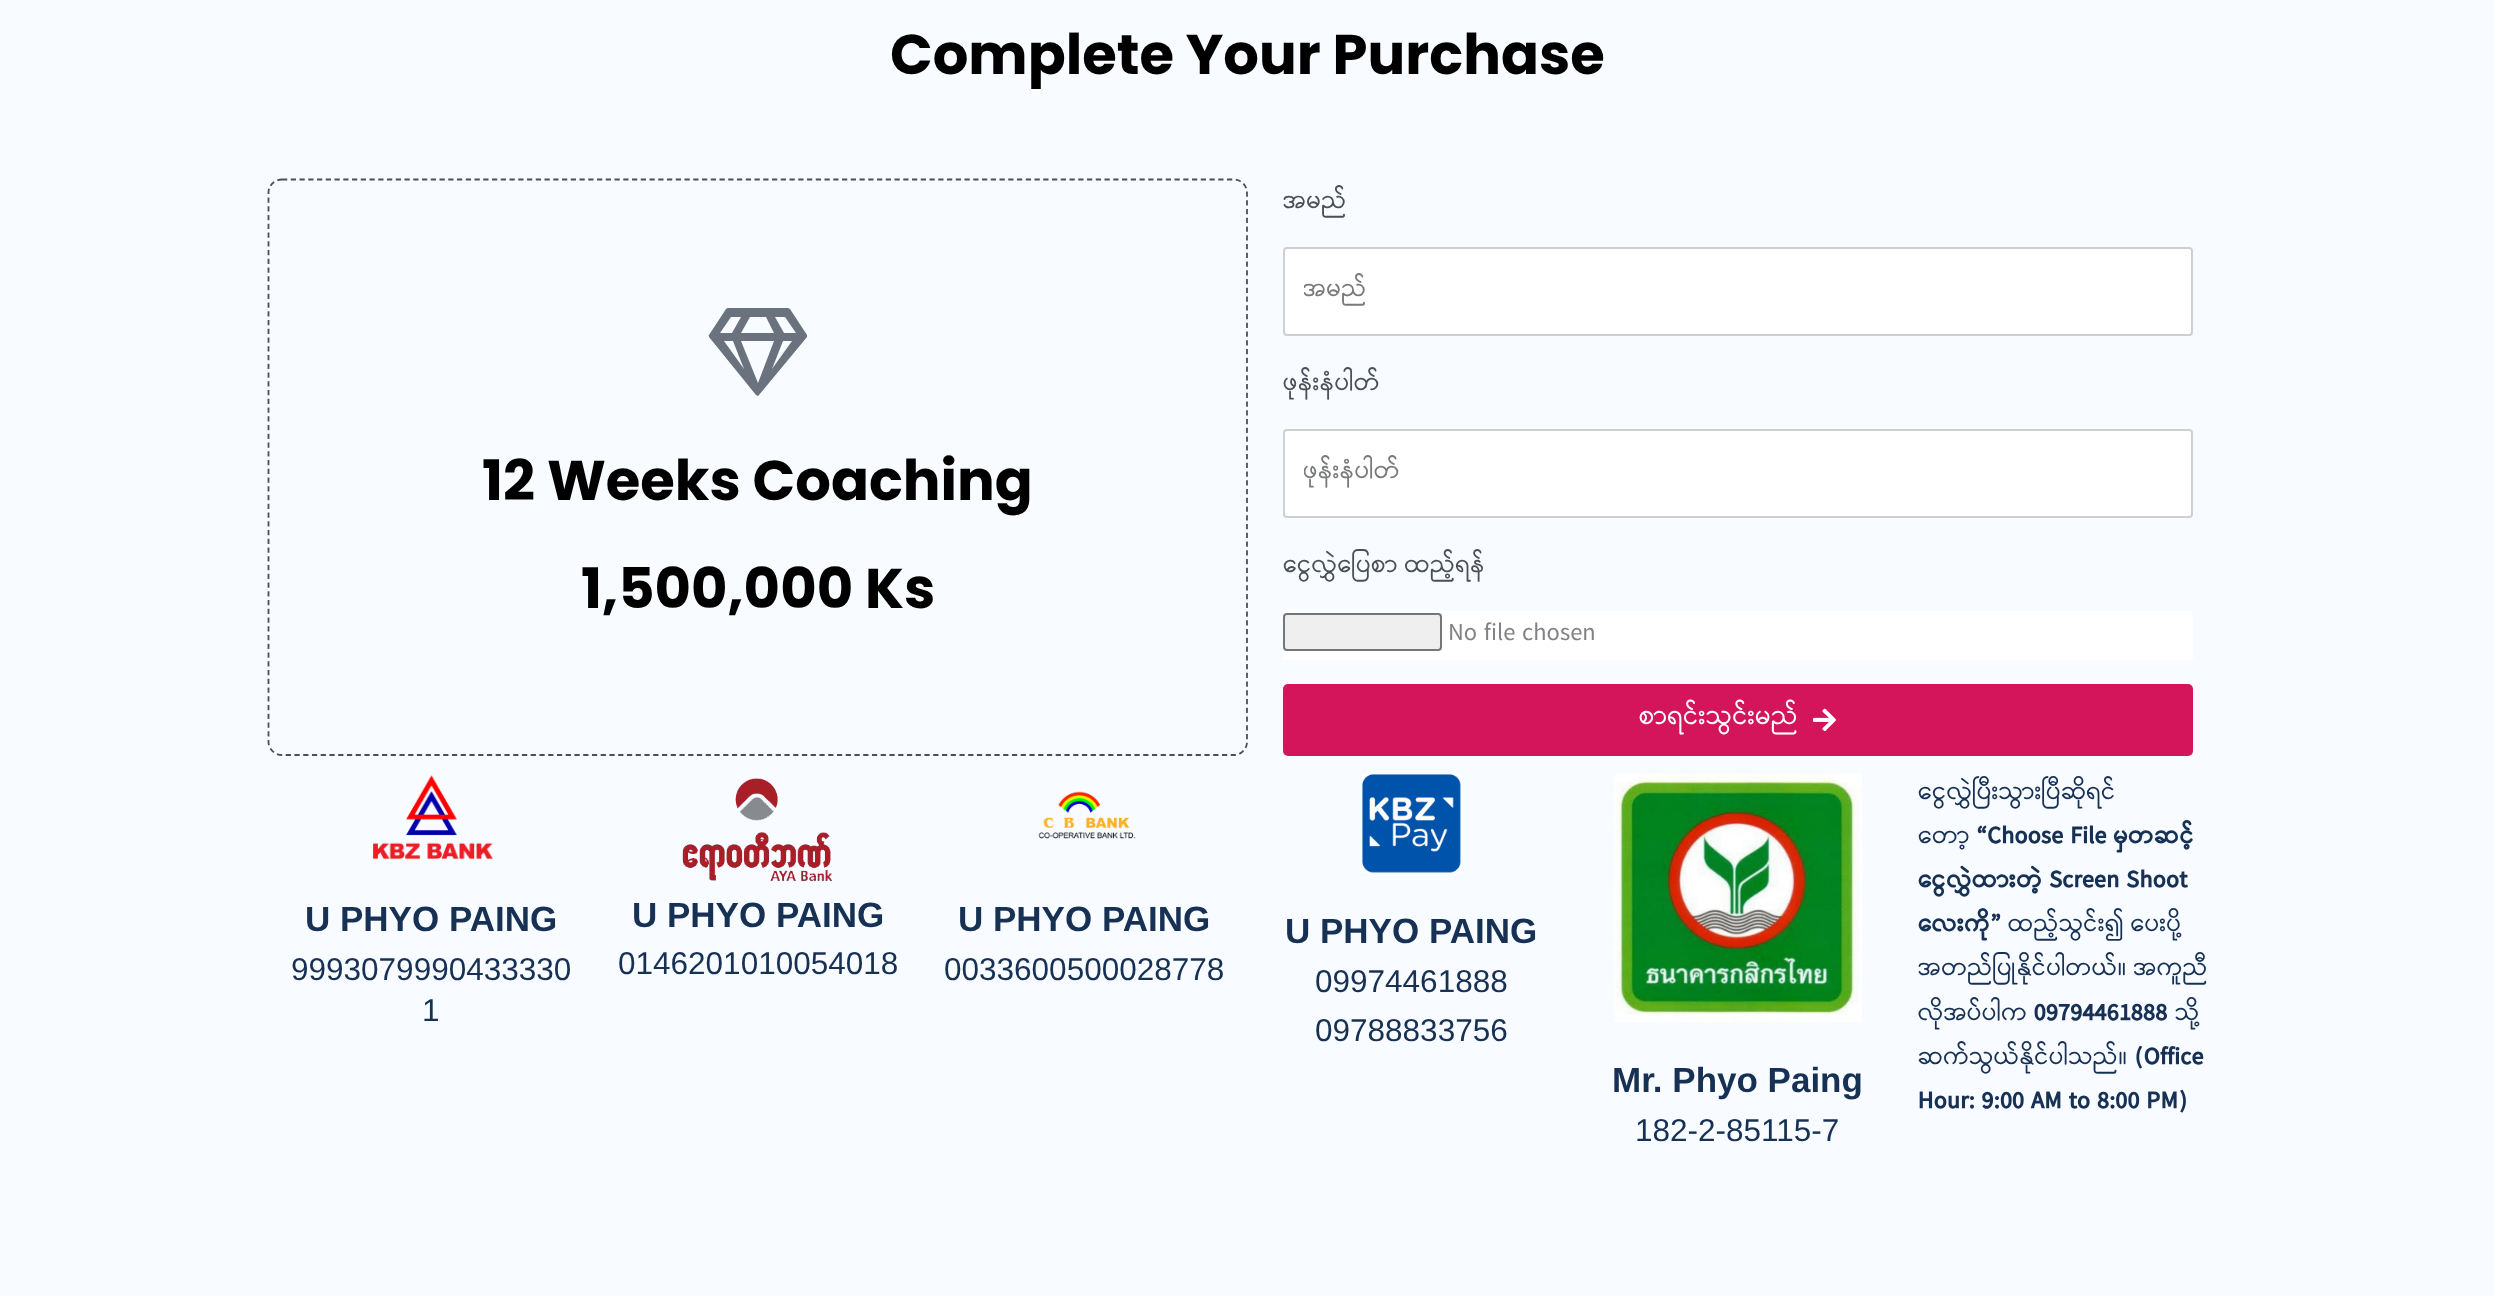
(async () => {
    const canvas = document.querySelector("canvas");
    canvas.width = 2494;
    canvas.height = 1296;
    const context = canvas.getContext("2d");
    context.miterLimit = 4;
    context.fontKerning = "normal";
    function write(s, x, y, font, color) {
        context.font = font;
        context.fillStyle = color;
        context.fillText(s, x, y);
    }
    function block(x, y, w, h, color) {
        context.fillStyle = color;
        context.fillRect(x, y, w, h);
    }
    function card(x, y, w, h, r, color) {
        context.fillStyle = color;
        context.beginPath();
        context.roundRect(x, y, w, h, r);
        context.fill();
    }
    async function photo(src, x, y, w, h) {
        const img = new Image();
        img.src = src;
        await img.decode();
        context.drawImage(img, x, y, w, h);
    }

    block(0, 0, 2494, 1296, "rgb(248, 251, 255)");
    write("Complete Your Purchase", 890, 74, "bold 56px Poppins", "rgb(0, 0, 0)");
    context.beginPath();
    context.moveTo(282, 179.5);
    context.lineTo(1234, 179.5);
    context.bezierCurveTo(1241, 179.5, 1247, 185.5, 1247, 192.5);
    context.lineTo(1247, 742);
    context.bezierCurveTo(1247, 749, 1241, 755, 1234, 755);
    context.lineTo(282, 755);
    context.bezierCurveTo(274.5, 755, 268.5, 749, 268.5, 742);
    context.lineTo(268.5, 192.5);
    context.bezierCurveTo(268.5, 185.5, 274.5, 179.5, 282, 179.5);
    context.closePath();
    context.strokeStyle = "rgb(75, 79, 88)";
    context.lineWidth = 1.8;
    context.setLineDash([5.25, 3.5]);
    context.stroke();
    context.fillStyle = "rgb(105, 114, 125)";
    context.beginPath();
    context.moveTo(788, 308);
    context.lineTo(790, 309);
    context.lineTo(807, 335);
    context.bezierCurveTo(807, 335, 807, 336, 807, 337);
    context.lineTo(759, 395);
    context.lineTo(758, 396);
    context.lineTo(756, 395);
    context.lineTo(709, 337);
    context.bezierCurveTo(709, 336, 708, 335, 709, 335);
    context.lineTo(726, 309);
    context.bezierCurveTo(726, 309, 727, 308, 728, 308);
    context.closePath();
    context.moveTo(785, 317);
    context.lineTo(775, 317);
    context.lineTo(784, 333);
    context.lineTo(796, 333);
    context.closePath();
    context.moveTo(750, 317);
    context.lineTo(741, 333);
    context.lineTo(774, 333);
    context.lineTo(766, 317);
    context.closePath();
    context.moveTo(731, 317);
    context.lineTo(720, 333);
    context.lineTo(732, 333);
    context.lineTo(741, 317);
    context.closePath();
    context.moveTo(724, 341);
    context.lineTo(744, 369);
    context.lineTo(733, 341);
    context.closePath();
    context.moveTo(741, 341);
    context.lineTo(758, 383);
    context.lineTo(774, 341);
    context.closePath();
    context.moveTo(772, 369);
    context.lineTo(792, 341);
    context.lineTo(783, 341);
    context.closePath();
    context.fill();
    write("12 Weeks Coaching", 482, 500, "bold 56px Poppins", "rgb(0, 0, 0)");
    write("1,500,000 Ks", 581, 608, "bold 56px Poppins", "rgb(0, 0, 0)");
    write("အမည်", 1283, 208, "24.5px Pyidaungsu", "rgb(75, 79, 88)");
    context.fillStyle = "rgb(255, 255, 255)";
    context.beginPath();
    context.roundRect(1284, 248, 908, 87, 3);
    context.fill();
    context.strokeStyle = "rgb(207, 207, 207)";
    context.lineWidth = 2;
    context.setLineDash([]);
    context.stroke();
    context.save();
    context.beginPath();
    context.rect(1304, 270, 870, 42);
    context.clip();
    write("အမည်", 1303, 296, "24.5px Pyidaungsu", "rgb(121, 122, 124)");
    context.restore();
    write("ဖုန်းနံပါတ်", 1283, 390, "24.5px Pyidaungsu", "rgb(75, 79, 88)");
    context.fillStyle = "rgb(255, 255, 255)";
    context.beginPath();
    context.roundRect(1284, 430, 908, 87, 3);
    context.fill();
    context.stroke();
    context.save();
    context.beginPath();
    context.rect(1304, 452, 870, 42);
    context.clip();
    write("ဖုန်းနံပါတ်", 1303, 478, "24.5px Pyidaungsu", "rgb(121, 122, 124)");
    context.restore();
    write("ငွေလွှဲပြေစာ ထည့်ရန်", 1283, 572, "24.5px Pyidaungsu", "rgb(75, 79, 88)");
    block(1283, 611, 910, 49, "rgb(255, 255, 255)");
    context.fillStyle = "rgb(239, 239, 239)";
    context.beginPath();
    context.roundRect(1284, 614, 157, 36, 3);
    context.fill();
    context.strokeStyle = "rgb(118, 118, 118)";
    context.stroke();
    write("No file chosen", 1448, 640, "24.5px Pyidaungsu", "rgb(128, 130, 133)");
    card(1283, 684, 910, 72, 5, "rgb(212, 21, 91)");
    write("စာရင်းသွင်းမည်", 1639, 724, "26.25px Pyidaungsu", "rgb(255, 255, 255)");
    await photo("media/1.png", 1813, 708, 23, 24);
    await photo("media/2.png", 372, 775, 121, 85);
    write("U PHYO PAING", 305, 931, "bold 35px Liberation Sans", "rgb(23, 49, 85)");
    write("9993079990433330", 291, 980, "31.5px Liberation Sans", "rgb(23, 49, 85)");
    write("1", 422, 1021, "31.5px Liberation Sans", "rgb(23, 49, 85)");
    await photo("media/3.png", 682, 778, 151, 104);
    write("U PHYO PAING", 632, 927, "bold 35px Liberation Sans", "rgb(23, 49, 85)");
    write("0146201010054018", 618, 974, "31.5px Liberation Sans", "rgb(23, 49, 85)");
    await photo("media/4.png", 1038, 791, 98, 48);
    write("U PHYO PAING", 958, 931, "bold 35px Liberation Sans", "rgb(23, 49, 85)");
    write("0033600500028778", 944, 980, "31.5px Liberation Sans", "rgb(23, 49, 85)");
    await photo("media/5.png", 1362, 774, 99, 99);
    write("U PHYO PAING", 1285, 943, "bold 35px Liberation Sans", "rgb(23, 49, 85)");
    write("09974461888", 1315, 992, "31.5px Liberation Sans", "rgb(23, 49, 85)");
    write("09788833756", 1315, 1041, "31.5px Liberation Sans", "rgb(23, 49, 85)");
    write("ငွေလွှဲပြီးသွားပြီဆိုရင်", 1918, 799, "24.5px Pyidaungsu", "rgb(23, 49, 85)");
    write("တော့", 1918, 843, "24.5px Pyidaungsu", "rgb(23, 49, 85)");
    write("“Choose File မှတဆင့်", 1977, 843, "bold 24.5px Pyidaungsu", "rgb(23, 49, 85)");
    write("ငွေလွှဲထားတဲ့ Screen Shoot", 1918, 887, "bold 24.5px Pyidaungsu", "rgb(23, 49, 85)");
    write("လေးကို”", 1918, 931, "bold 24.5px Pyidaungsu", "rgb(23, 49, 85)");
    write("ထည့်သွင်း၍ ပေးပို့", 2008, 931, "24.5px Pyidaungsu", "rgb(23, 49, 85)");
    write("အတည်ပြုနိုင်ပါတယ်။ အကူညီ", 1918, 975, "24.5px Pyidaungsu", "rgb(23, 49, 85)");
    write("လိုအပ်ပါက", 1918, 1020, "24.5px Pyidaungsu", "rgb(23, 49, 85)");
    write("09794461888", 2034, 1020, "bold 24.5px Pyidaungsu", "rgb(23, 49, 85)");
    write("သို့", 2175, 1020, "24.5px Pyidaungsu", "rgb(23, 49, 85)");
    write("ဆက်သွယ်နိုင်ပါသည်။", 1918, 1064, "24.5px Pyidaungsu", "rgb(23, 49, 85)");
    write("(Office", 2135, 1064, "bold 24.5px Pyidaungsu", "rgb(23, 49, 85)");
    write("Hour: 9:00 AM to 8:00 PM)", 1918, 1108, "bold 24.5px Pyidaungsu", "rgb(23, 49, 85)");
    await photo("media/6.png", 1614, 773, 248, 249);
    write("Mr. Phyo Paing", 1612, 1092, "bold 35px Liberation Sans", "rgb(23, 49, 85)");
    write("182-2-85115-7", 1635, 1141, "31.5px Liberation Sans", "rgb(23, 49, 85)");
})();
